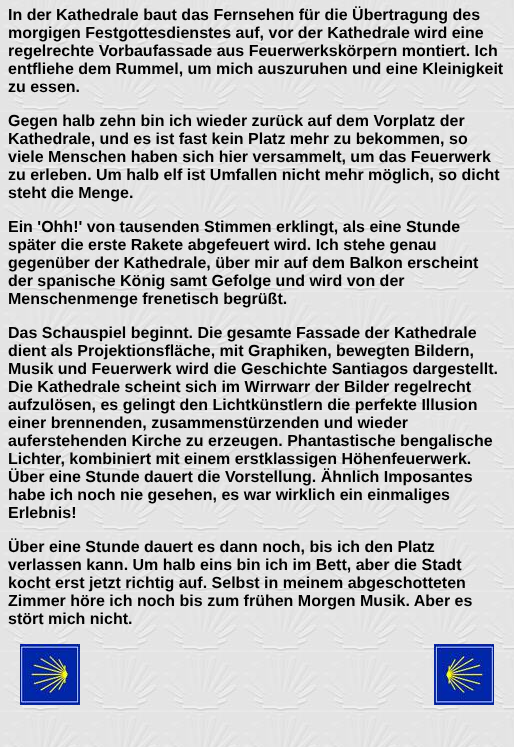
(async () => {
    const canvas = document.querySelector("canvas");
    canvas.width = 514;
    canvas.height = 747;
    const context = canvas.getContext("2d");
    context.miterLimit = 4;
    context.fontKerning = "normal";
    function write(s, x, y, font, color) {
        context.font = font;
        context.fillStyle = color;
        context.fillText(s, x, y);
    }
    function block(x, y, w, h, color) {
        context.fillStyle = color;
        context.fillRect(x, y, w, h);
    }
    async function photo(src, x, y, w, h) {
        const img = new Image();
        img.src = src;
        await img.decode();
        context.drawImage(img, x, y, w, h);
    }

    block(0, 0, 514, 747, "rgb(255, 255, 255)");
    await photo("media/1.png", 0, 0, 514, 747);
    write("In der Kathedrale baut das Fernsehen für die Übertragung des", 8, 20, "bold 16px Liberation Sans", "rgb(0, 0, 0)");
    write("morgigen Festgottesdienstes auf, vor der Kathedrale wird eine", 8, 38, "bold 16px Liberation Sans", "rgb(0, 0, 0)");
    write("regelrechte Vorbaufassade aus Feuerwerkskörpern montiert. Ich", 8, 56, "bold 16px Liberation Sans", "rgb(0, 0, 0)");
    write("entfliehe dem Rummel, um mich auszuruhen und eine Kleinigkeit", 8, 74, "bold 16px Liberation Sans", "rgb(0, 0, 0)");
    write("zu essen.", 8, 92, "bold 16px Liberation Sans", "rgb(0, 0, 0)");
    write("Gegen halb zehn bin ich wieder zurück auf dem Vorplatz der", 8, 126, "bold 16px Liberation Sans", "rgb(0, 0, 0)");
    write("Kathedrale, und es ist fast kein Platz mehr zu bekommen, so", 8, 144, "bold 16px Liberation Sans", "rgb(0, 0, 0)");
    write("viele Menschen haben sich hier versammelt, um das Feuerwerk", 8, 162, "bold 16px Liberation Sans", "rgb(0, 0, 0)");
    write("zu erleben. Um halb elf ist Umfallen nicht mehr möglich, so dicht", 8, 180, "bold 16px Liberation Sans", "rgb(0, 0, 0)");
    write("steht die Menge.", 8, 198, "bold 16px Liberation Sans", "rgb(0, 0, 0)");
    write("Ein 'Ohh!' von tausenden Stimmen erklingt, als eine Stunde", 8, 232, "bold 16px Liberation Sans", "rgb(0, 0, 0)");
    write("später die erste Rakete abgefeuert wird. Ich stehe genau", 8, 250, "bold 16px Liberation Sans", "rgb(0, 0, 0)");
    write("gegenüber der Kathedrale, über mir auf dem Balkon erscheint", 8, 268, "bold 16px Liberation Sans", "rgb(0, 0, 0)");
    write("der spanische König samt Gefolge und wird von der", 8, 286, "bold 16px Liberation Sans", "rgb(0, 0, 0)");
    write("Menschenmenge frenetisch begrüßt.", 8, 304, "bold 16px Liberation Sans", "rgb(0, 0, 0)");
    write("Das Schauspiel beginnt. Die gesamte Fassade der Kathedrale", 8, 338, "bold 16px Liberation Sans", "rgb(0, 0, 0)");
    write("dient als Projektionsfläche, mit Graphiken, bewegten Bildern,", 8, 356, "bold 16px Liberation Sans", "rgb(0, 0, 0)");
    write("Musik und Feuerwerk wird die Geschichte Santiagos dargestellt.", 8, 374, "bold 16px Liberation Sans", "rgb(0, 0, 0)");
    write("Die Kathedrale scheint sich im Wirrwarr der Bilder regelrecht", 8, 392, "bold 16px Liberation Sans", "rgb(0, 0, 0)");
    write("aufzulösen, es gelingt den Lichtkünstlern die perfekte Illusion", 8, 410, "bold 16px Liberation Sans", "rgb(0, 0, 0)");
    write("einer brennenden, zusammenstürzenden und wieder", 8, 428, "bold 16px Liberation Sans", "rgb(0, 0, 0)");
    write("auferstehenden Kirche zu erzeugen. Phantastische bengalische", 8, 446, "bold 16px Liberation Sans", "rgb(0, 0, 0)");
    write("Lichter, kombiniert mit einem erstklassigen Höhenfeuerwerk.", 8, 464, "bold 16px Liberation Sans", "rgb(0, 0, 0)");
    write("Über eine Stunde dauert die Vorstellung. Ähnlich Imposantes", 8, 482, "bold 16px Liberation Sans", "rgb(0, 0, 0)");
    write("habe ich noch nie gesehen, es war wirklich ein einmaliges", 8, 500, "bold 16px Liberation Sans", "rgb(0, 0, 0)");
    write("Erlebnis!", 8, 518, "bold 16px Liberation Sans", "rgb(0, 0, 0)");
    write("Über eine Stunde dauert es dann noch, bis ich den Platz", 8, 552, "bold 16px Liberation Sans", "rgb(0, 0, 0)");
    write("verlassen kann. Um halb eins bin ich im Bett, aber die Stadt", 8, 570, "bold 16px Liberation Sans", "rgb(0, 0, 0)");
    write("kocht erst jetzt richtig auf. Selbst in meinem abgeschotteten", 8, 588, "bold 16px Liberation Sans", "rgb(0, 0, 0)");
    write("Zimmer höre ich noch bis zum frühen Morgen Musik. Aber es", 8, 606, "bold 16px Liberation Sans", "rgb(0, 0, 0)");
    write("stört mich nicht.", 8, 624, "bold 16px Liberation Sans", "rgb(0, 0, 0)");
    await photo("media/2.png", 20, 644, 60, 61);
    await photo("media/3.png", 434, 644, 60, 61);
})();
